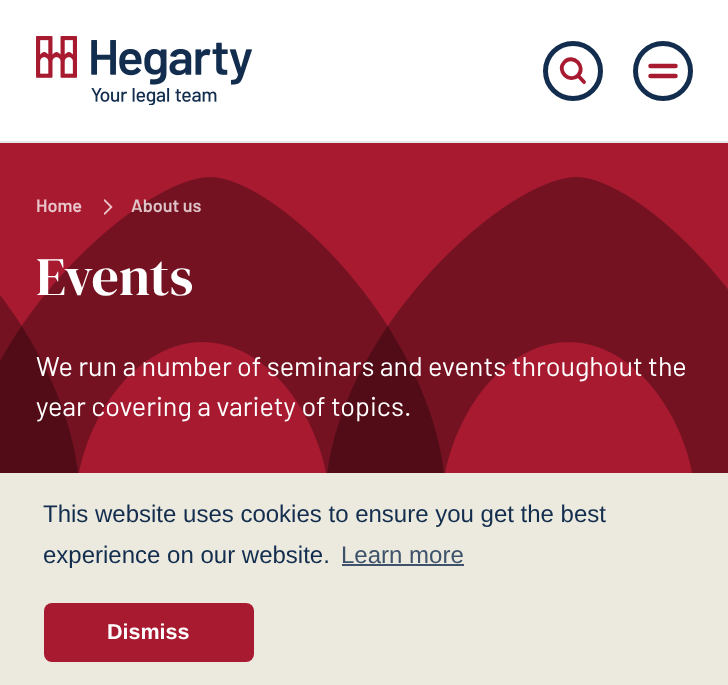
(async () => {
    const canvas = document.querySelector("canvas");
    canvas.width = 728;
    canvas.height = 685;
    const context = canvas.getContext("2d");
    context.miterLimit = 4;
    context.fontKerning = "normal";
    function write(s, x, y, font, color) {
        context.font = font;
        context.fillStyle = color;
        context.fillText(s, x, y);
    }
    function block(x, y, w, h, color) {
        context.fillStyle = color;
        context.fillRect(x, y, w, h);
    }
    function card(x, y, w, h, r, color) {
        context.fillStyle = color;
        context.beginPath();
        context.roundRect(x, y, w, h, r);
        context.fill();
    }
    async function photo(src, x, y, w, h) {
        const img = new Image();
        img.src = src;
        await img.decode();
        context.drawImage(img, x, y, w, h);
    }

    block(0, 0, 728, 685, "rgb(255, 255, 255)");
    block(0, 141, 728, 2, "rgb(229, 231, 235)");
    await photo("media/1.png", 36, 36, 216, 69);
    context.beginPath();
    context.arc(573, 71, 27.5, 0, Math.PI * 2);
    context.strokeStyle = "rgb(18, 45, 78)";
    context.lineWidth = 5;
    context.stroke();
    context.beginPath();
    context.moveTo(584, 82);
    context.lineTo(578, 75.5);
    context.moveTo(578, 75.5);
    context.bezierCurveTo(586.5, 66.5, 573, 53.5, 564.5, 62);
    context.bezierCurveTo(556, 70.5, 569, 84, 578, 75.5);
    context.closePath();
    context.strokeStyle = "rgb(167, 26, 48)";
    context.lineWidth = 3.8;
    context.lineCap = "round";
    context.lineJoin = "round";
    context.stroke();
    context.beginPath();
    context.arc(663, 71, 27.5, 0, Math.PI * 2);
    context.strokeStyle = "rgb(18, 45, 78)";
    context.lineWidth = 5;
    context.stroke();
    context.beginPath();
    context.moveTo(650.5, 66);
    context.lineTo(675.5, 66);
    context.moveTo(650.5, 76);
    context.lineTo(675.5, 76);
    context.strokeStyle = "rgb(167, 26, 48)";
    context.lineWidth = 4.5;
    context.stroke();
    block(0, 143, 728, 330, "rgb(167, 26, 48)");
    await photo("media/2.png", 0, 177, 728, 296);
    write("Home", 36, 212, "600 18px Barlow", "rgb(233, 198, 203)");
    await photo("media/3.png", 104, 199, 9, 16);
    write("About us", 131, 212, "600 18px Barlow", "rgb(222, 196, 200)");
    write("Events", 36, 295, "54px DM Serif Display", "rgb(255, 255, 255)");
    write("We run a number of seminars and events throughout the", 36, 376, "27px Barlow", "rgb(255, 255, 255)");
    write("year covering a variety of topics.", 36, 416, "27px Barlow", "rgb(255, 255, 255)");
    block(0, 473, 728, 212, "rgb(236, 234, 222)");
    write("This website uses cookies to ensure you get the best", 43, 522, "24px Liberation Sans", "rgb(18, 45, 78)");
    write("experience on our website.", 43, 563, "24px Liberation Sans", "rgb(18, 45, 78)");
    write("Learn more", 341, 563, "24px Liberation Sans", "rgb(62, 83, 107)");
    block(342, 564, 122, 2, "rgb(62, 83, 107)");
    card(44, 603, 210, 59, 8, "rgb(167, 26, 48)");
    write("Dismiss", 107, 639, "bold 21.5px Liberation Sans", "rgb(255, 255, 255)");
})();
